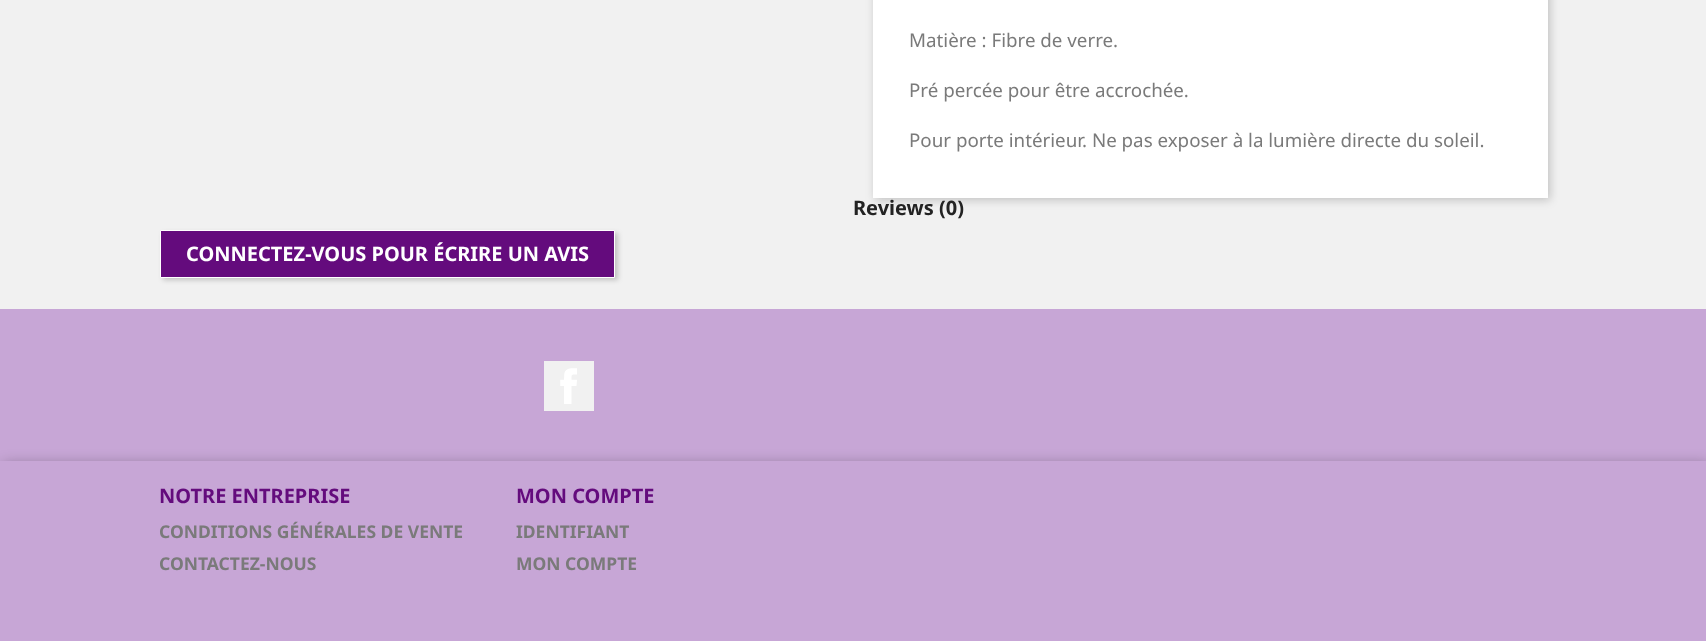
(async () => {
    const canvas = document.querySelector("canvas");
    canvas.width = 1706;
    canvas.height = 641;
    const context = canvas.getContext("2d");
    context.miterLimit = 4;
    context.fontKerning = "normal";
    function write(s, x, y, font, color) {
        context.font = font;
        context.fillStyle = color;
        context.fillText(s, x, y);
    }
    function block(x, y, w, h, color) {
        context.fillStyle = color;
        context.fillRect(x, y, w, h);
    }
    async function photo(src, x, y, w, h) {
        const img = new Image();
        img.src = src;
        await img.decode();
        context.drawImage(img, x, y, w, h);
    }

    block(0, 0, 1706, 641, "rgb(241, 241, 241)");
    context.fillStyle = "rgba(0, 0, 0, 0.2)";
    context.filter = "blur(5px)";
    context.beginPath();
    context.rect(875, -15, 675, 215);
    context.fill();
    context.filter = "none";
    block(873, 0, 675, 198, "rgb(255, 255, 255)");
    write("Matière : Fibre de verre.", 909, 47, "18.75px Noto Sans", "rgb(122, 122, 122)");
    write("Pré percée pour être accrochée.", 909, 97, "18.75px Noto Sans", "rgb(122, 122, 122)");
    write("Pour porte intérieur. Ne pas exposer à la lumière directe du soleil.", 909, 147, "18.75px Noto Sans", "rgb(122, 122, 122)");
    write("Reviews (0)", 853, 215, "bold 20px Noto Sans", "rgb(35, 35, 35)");
    context.fillStyle = "rgba(0, 0, 0, 0.2)";
    context.filter = "blur(2.5px)";
    context.beginPath();
    context.rect(163, 233, 455, 47);
    context.fill();
    context.filter = "none";
    context.fillStyle = "rgb(100, 11, 125)";
    context.beginPath();
    context.rect(160.5, 230.5, 454, 47);
    context.fill();
    context.strokeStyle = "rgb(255, 255, 255)";
    context.stroke();
    write("CONNECTEZ-VOUS POUR ÉCRIRE UN AVIS", 186, 261, "bold 20px Noto Sans", "rgb(255, 255, 255)");
    block(0, 309, 1706, 332, "rgb(199, 166, 214)");
    block(544, 361, 50, 50, "rgb(241, 241, 241)");
    await photo("media/1.png", 560, 368, 17, 36);
    context.save();
    context.beginPath();
    context.moveTo(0, 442);
    context.lineTo(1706, 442);
    context.lineTo(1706, 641);
    context.lineTo(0, 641);
    context.closePath();
    context.moveTo(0, 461);
    context.lineTo(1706, 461);
    context.lineTo(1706, 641);
    context.lineTo(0, 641);
    context.closePath();
    context.clip("evenodd");
    context.fillStyle = "rgba(0, 0, 0, 0.3)";
    context.filter = "blur(7px)";
    context.beginPath();
    context.rect(3, 464, 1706, 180);
    context.fill();
    context.filter = "none";
    context.restore();
    write("NOTRE ENTREPRISE", 159, 503, "bold 20px Noto Sans", "rgb(100, 11, 125)");
    write("CONDITIONS GÉNÉRALES DE VENTE", 159, 538, "bold 17.5px Noto Sans", "rgb(122, 122, 122)");
    write("CONTACTEZ-NOUS", 159, 570, "bold 17.5px Noto Sans", "rgb(122, 122, 122)");
    write("MON COMPTE", 516, 503, "bold 20px Noto Sans", "rgb(100, 11, 125)");
    write("IDENTIFIANT", 516, 538, "bold 17.5px Noto Sans", "rgb(122, 122, 122)");
    write("MON COMPTE", 516, 570, "bold 17.5px Noto Sans", "rgb(122, 122, 122)");
})();
